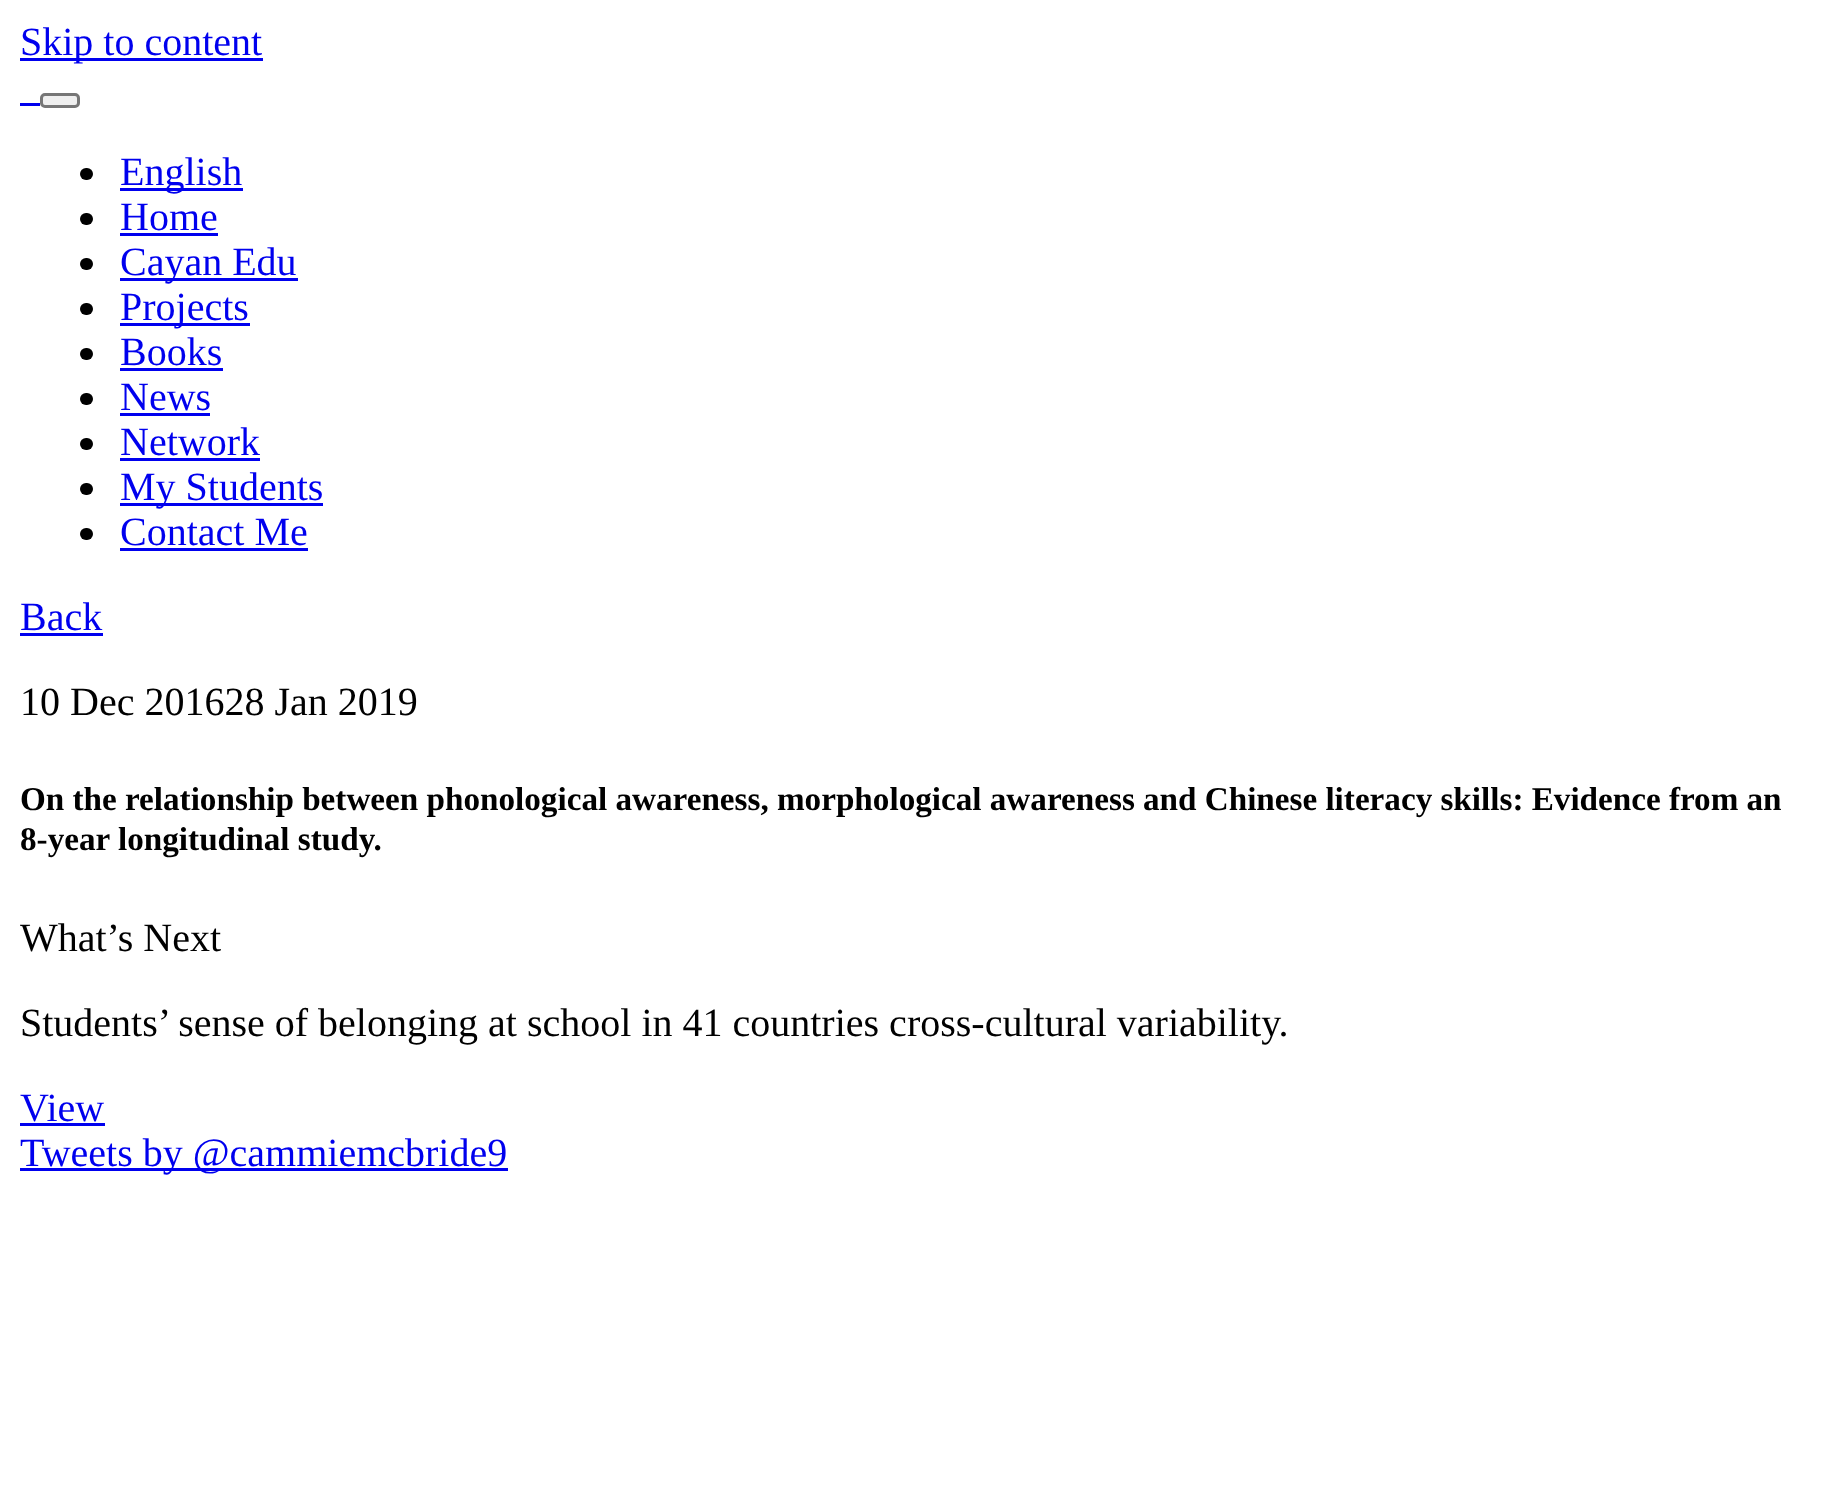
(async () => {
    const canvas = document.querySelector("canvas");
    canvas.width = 1834;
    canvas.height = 1485;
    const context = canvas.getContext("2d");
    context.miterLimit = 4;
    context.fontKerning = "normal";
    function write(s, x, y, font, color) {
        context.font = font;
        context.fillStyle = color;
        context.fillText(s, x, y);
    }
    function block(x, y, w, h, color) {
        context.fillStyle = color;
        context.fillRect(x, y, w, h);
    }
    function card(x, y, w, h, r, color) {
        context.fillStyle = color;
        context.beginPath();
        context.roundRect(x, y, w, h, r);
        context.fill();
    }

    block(0, 0, 1834, 1485, "rgb(255, 255, 255)");
    block(20, 58, 243, 3, "rgb(0, 0, 238)");
    write("Skip to content", 20, 55, "40px Liberation Serif", "rgb(0, 0, 238)");
    block(20, 103, 20, 3, "rgb(0, 0, 238)");
    context.fillStyle = "rgb(239, 239, 239)";
    context.beginPath();
    context.roundRect(41.5, 94.5, 37, 12, 3.5);
    context.fill();
    context.strokeStyle = "rgb(118, 118, 118)";
    context.lineWidth = 3;
    context.stroke();
    card(80, 168, 13, 12, 6, "rgb(0, 0, 0)");
    block(120, 188, 123, 3, "rgb(0, 0, 238)");
    write("English", 120, 185, "40px Liberation Serif", "rgb(0, 0, 238)");
    card(80, 213, 13, 12, 6, "rgb(0, 0, 0)");
    write("Home", 120, 230, "40px Liberation Serif", "rgb(0, 0, 238)");
    block(120, 233, 98, 3, "rgb(0, 0, 238)");
    card(80, 258, 13, 12, 6, "rgb(0, 0, 0)");
    block(120, 278, 178, 3, "rgb(0, 0, 238)");
    write("Cayan Edu", 120, 275, "40px Liberation Serif", "rgb(0, 0, 238)");
    card(80, 303, 13, 12, 6, "rgb(0, 0, 0)");
    block(120, 323, 130, 3, "rgb(0, 0, 238)");
    write("Projects", 120, 320, "40px Liberation Serif", "rgb(0, 0, 238)");
    card(80, 348, 13, 12, 6, "rgb(0, 0, 0)");
    write("Books", 120, 365, "40px Liberation Serif", "rgb(0, 0, 238)");
    block(120, 368, 103, 3, "rgb(0, 0, 238)");
    card(80, 393, 13, 12, 6, "rgb(0, 0, 0)");
    write("News", 120, 410, "40px Liberation Serif", "rgb(0, 0, 238)");
    block(120, 413, 90, 3, "rgb(0, 0, 238)");
    card(80, 438, 13, 12, 6, "rgb(0, 0, 0)");
    write("Network", 120, 455, "40px Liberation Serif", "rgb(0, 0, 238)");
    block(120, 458, 140, 3, "rgb(0, 0, 238)");
    card(80, 483, 13, 12, 6, "rgb(0, 0, 0)");
    block(120, 503, 203, 3, "rgb(0, 0, 238)");
    write("My Students", 120, 500, "40px Liberation Serif", "rgb(0, 0, 238)");
    card(80, 528, 13, 12, 6, "rgb(0, 0, 0)");
    write("Contact Me", 120, 545, "40px Liberation Serif", "rgb(0, 0, 238)");
    block(120, 548, 188, 3, "rgb(0, 0, 238)");
    write("Back", 20, 630, "40px Liberation Serif", "rgb(0, 0, 238)");
    block(20, 633, 83, 3, "rgb(0, 0, 238)");
    write("10 Dec 201628 Jan 2019", 20, 715, "40px Liberation Serif", "rgb(0, 0, 0)");
    context.wordSpacing = "-0.1px";
    write("On the relationship between phonological awareness, morphological awareness and Chinese literacy skills: Evidence from an", 20, 810, "bold 33.2px Liberation Serif", "rgb(0, 0, 0)");
    context.wordSpacing = "0px";
    write("8‐year longitudinal study.", 20, 850, "bold 33.2px Liberation Serif", "rgb(0, 0, 0)");
    write("What’s Next", 20, 951, "40px Liberation Serif", "rgb(0, 0, 0)");
    write("Students’ sense of belonging at school in 41 countries cross-cultural variability.", 20, 1036, "40px Liberation Serif", "rgb(0, 0, 0)");
    write("View", 20, 1121, "40px Liberation Serif", "rgb(0, 0, 238)");
    block(20, 1123, 85, 3, "rgb(0, 0, 238)");
    block(20, 1168, 488, 3, "rgb(0, 0, 238)");
    write("Tweets by @cammiemcbride9", 20, 1166, "40px Liberation Serif", "rgb(0, 0, 238)");
})();
